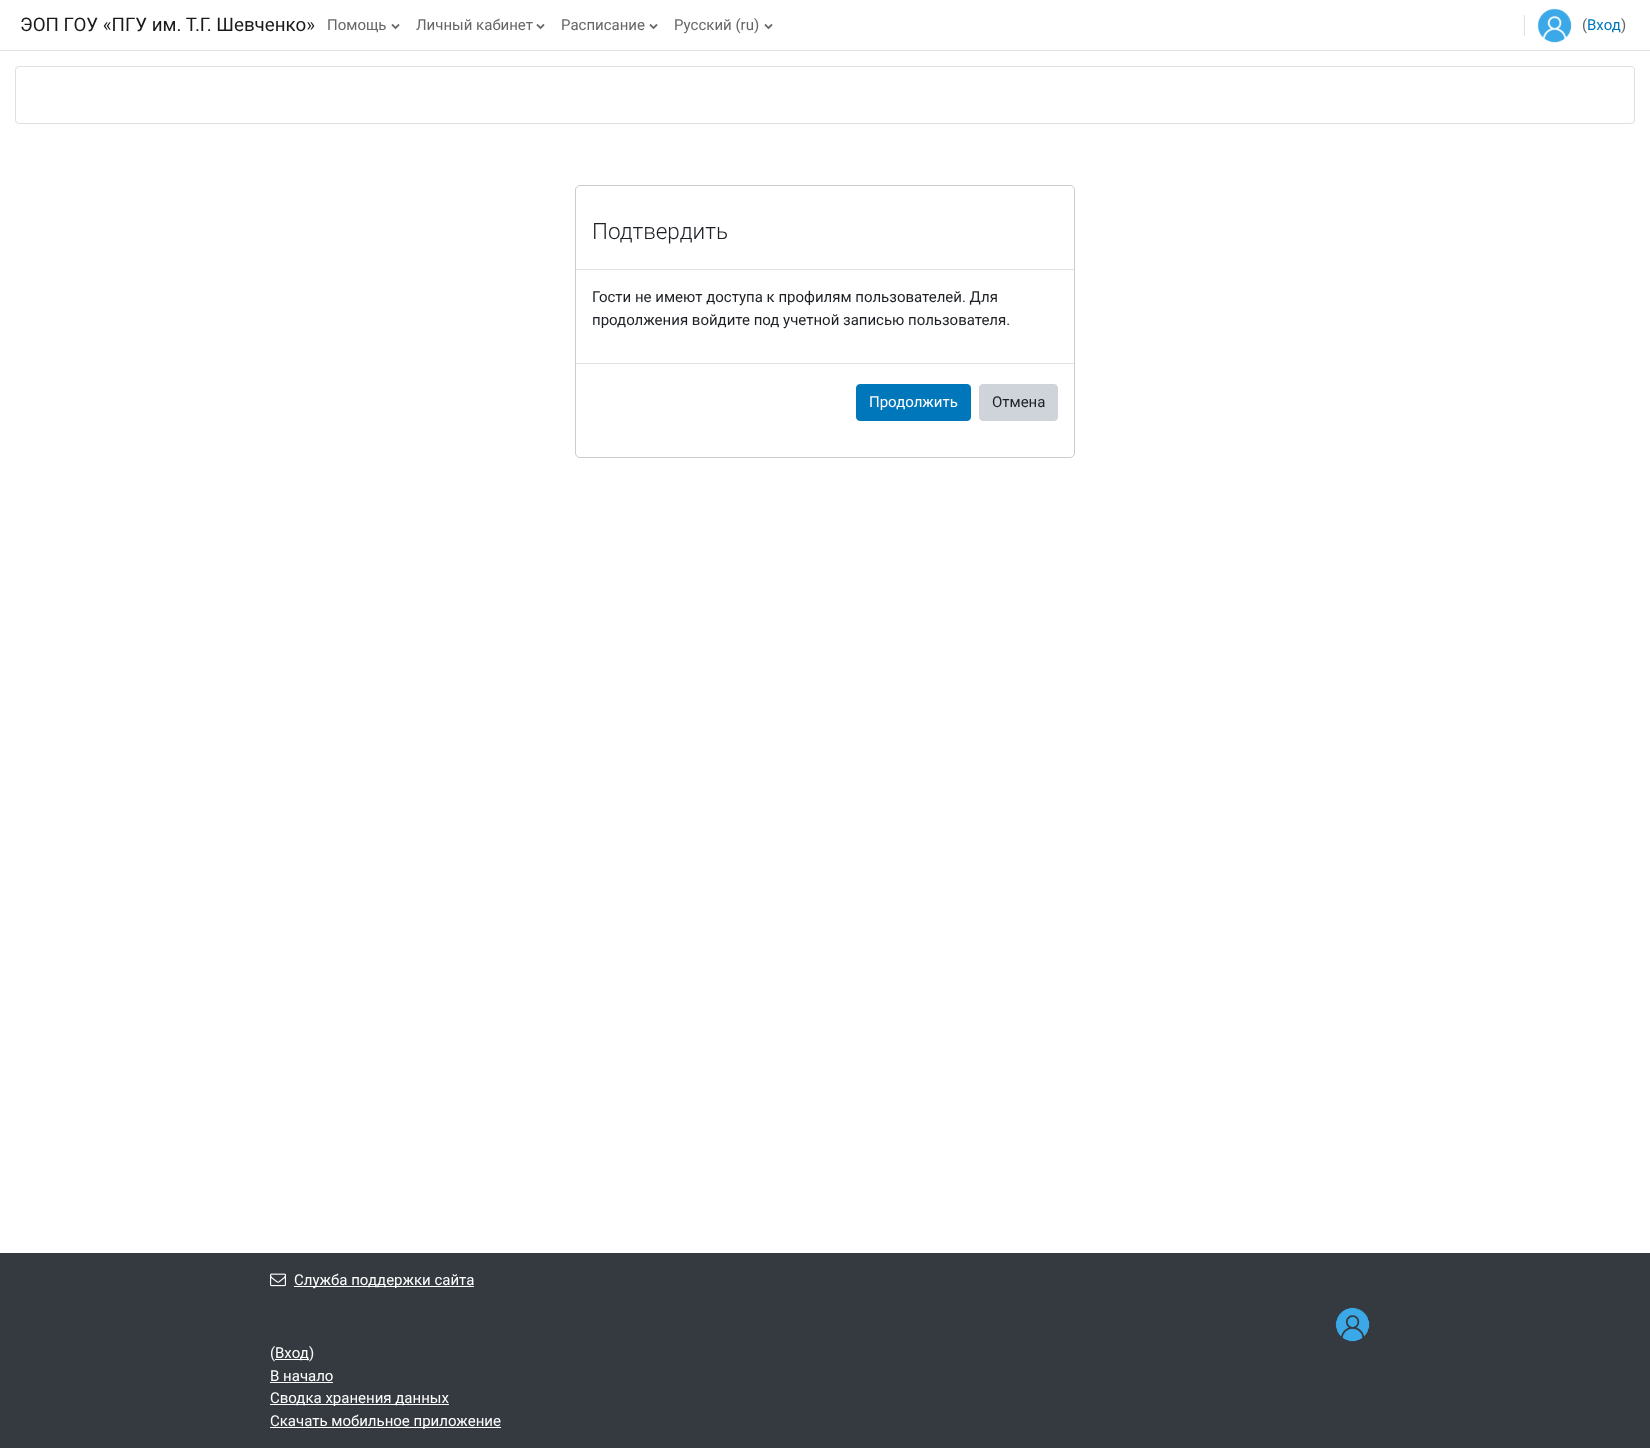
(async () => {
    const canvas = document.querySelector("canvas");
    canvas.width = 1650;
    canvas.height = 1448;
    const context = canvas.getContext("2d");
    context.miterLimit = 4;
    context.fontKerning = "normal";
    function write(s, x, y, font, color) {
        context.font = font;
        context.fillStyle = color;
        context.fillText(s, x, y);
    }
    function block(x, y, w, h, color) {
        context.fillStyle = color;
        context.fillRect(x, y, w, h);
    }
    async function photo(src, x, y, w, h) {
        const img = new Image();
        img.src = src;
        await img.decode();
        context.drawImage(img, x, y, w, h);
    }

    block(0, 0, 1650, 1448, "rgb(255, 255, 255)");
    block(0, 50, 1650, 1, "rgb(222, 226, 230)");
    write("ЭОП ГОУ «ПГУ им. Т.Г. Шевченко»", 20, 31, "18.75px Roboto", "rgb(26, 26, 26)");
    write("Помощь", 327, 30, "15px Roboto", "rgb(102, 102, 102)");
    await photo("media/1.png", 391, 24, 9, 6);
    write("Личный кабинет", 416, 30, "15px Roboto", "rgb(102, 102, 102)");
    await photo("media/1.png", 536, 24, 9, 6);
    write("Расписание", 561, 30, "15px Roboto", "rgb(102, 102, 102)");
    await photo("media/1.png", 649, 24, 9, 6);
    write("Русский (ru)", 674, 30, "15px Roboto", "rgb(102, 102, 102)");
    await photo("media/1.png", 764, 24, 9, 6);
    block(1524, 15, 1, 21, "rgb(222, 226, 230)");
    await photo("media/2.png", 1537, 8, 35, 35);
    write("(", 1582, 30, "15px Roboto", "rgb(102, 102, 102)");
    write("Вход", 1587, 30, "15px Roboto", "rgb(0, 119, 187)");
    write(")", 1621, 30, "15px Roboto", "rgb(102, 102, 102)");
    context.beginPath();
    context.roundRect(15.5, 66.5, 1619, 57, 3.5);
    context.strokeStyle = "rgb(223, 223, 223)";
    context.stroke();
    context.beginPath();
    context.roundRect(575.5, 185.5, 499, 272, 4.5);
    context.strokeStyle = "rgb(204, 204, 204)";
    context.stroke();
    block(576, 269, 498, 1, "rgb(222, 226, 230)");
    write("Подтвердить", 592, 239, "300 22.5px Roboto", "rgb(29, 33, 37)");
    write("Гости не имеют доступа к профилям пользователей. Для", 592, 302, "15px Roboto", "rgb(29, 33, 37)");
    write("продолжения войдите под учетной записью пользователя.", 592, 325, "15px Roboto", "rgb(29, 33, 37)");
    block(576, 363, 498, 1, "rgb(222, 226, 230)");
    context.fillStyle = "rgb(0, 119, 187)";
    context.beginPath();
    context.roundRect(856.5, 384.5, 114, 36, 3.5);
    context.fill();
    context.strokeStyle = "rgb(0, 119, 187)";
    context.stroke();
    write("Продолжить", 869, 407, "15px Roboto", "rgb(255, 255, 255)");
    context.fillStyle = "rgb(206, 212, 218)";
    context.beginPath();
    context.roundRect(979.5, 384.5, 78, 36, 3.5);
    context.fill();
    context.strokeStyle = "rgb(206, 212, 218)";
    context.stroke();
    write("Отмена", 992, 407, "15px Roboto", "rgb(29, 33, 37)");
    block(0, 1253, 1650, 195, "rgb(52, 58, 64)");
    await photo("media/3.png", 270, 1273, 16, 14);
    block(294, 1286, 180, 1, "rgb(255, 255, 255)");
    write("Служба поддержки сайта", 294, 1285, "15px Roboto", "rgb(255, 255, 255)");
    await photo("media/4.png", 1335, 1307, 35, 35);
    write("(", 270, 1358, "15px Roboto", "rgb(248, 249, 250)");
    block(275, 1359, 34, 1, "rgb(255, 255, 255)");
    write("Вход", 275, 1358, "15px Roboto", "rgb(255, 255, 255)");
    write(")", 309, 1358, "15px Roboto", "rgb(248, 249, 250)");
    write("В начало", 270, 1381, "15px Roboto", "rgb(255, 255, 255)");
    block(270, 1382, 63, 1, "rgb(255, 255, 255)");
    block(270, 1404, 179, 1, "rgb(255, 255, 255)");
    write("Сводка хранения данных", 270, 1403, "15px Roboto", "rgb(255, 255, 255)");
    block(270, 1427, 231, 1, "rgb(255, 255, 255)");
    write("Скачать мобильное приложение", 270, 1426, "15px Roboto", "rgb(255, 255, 255)");
})();
